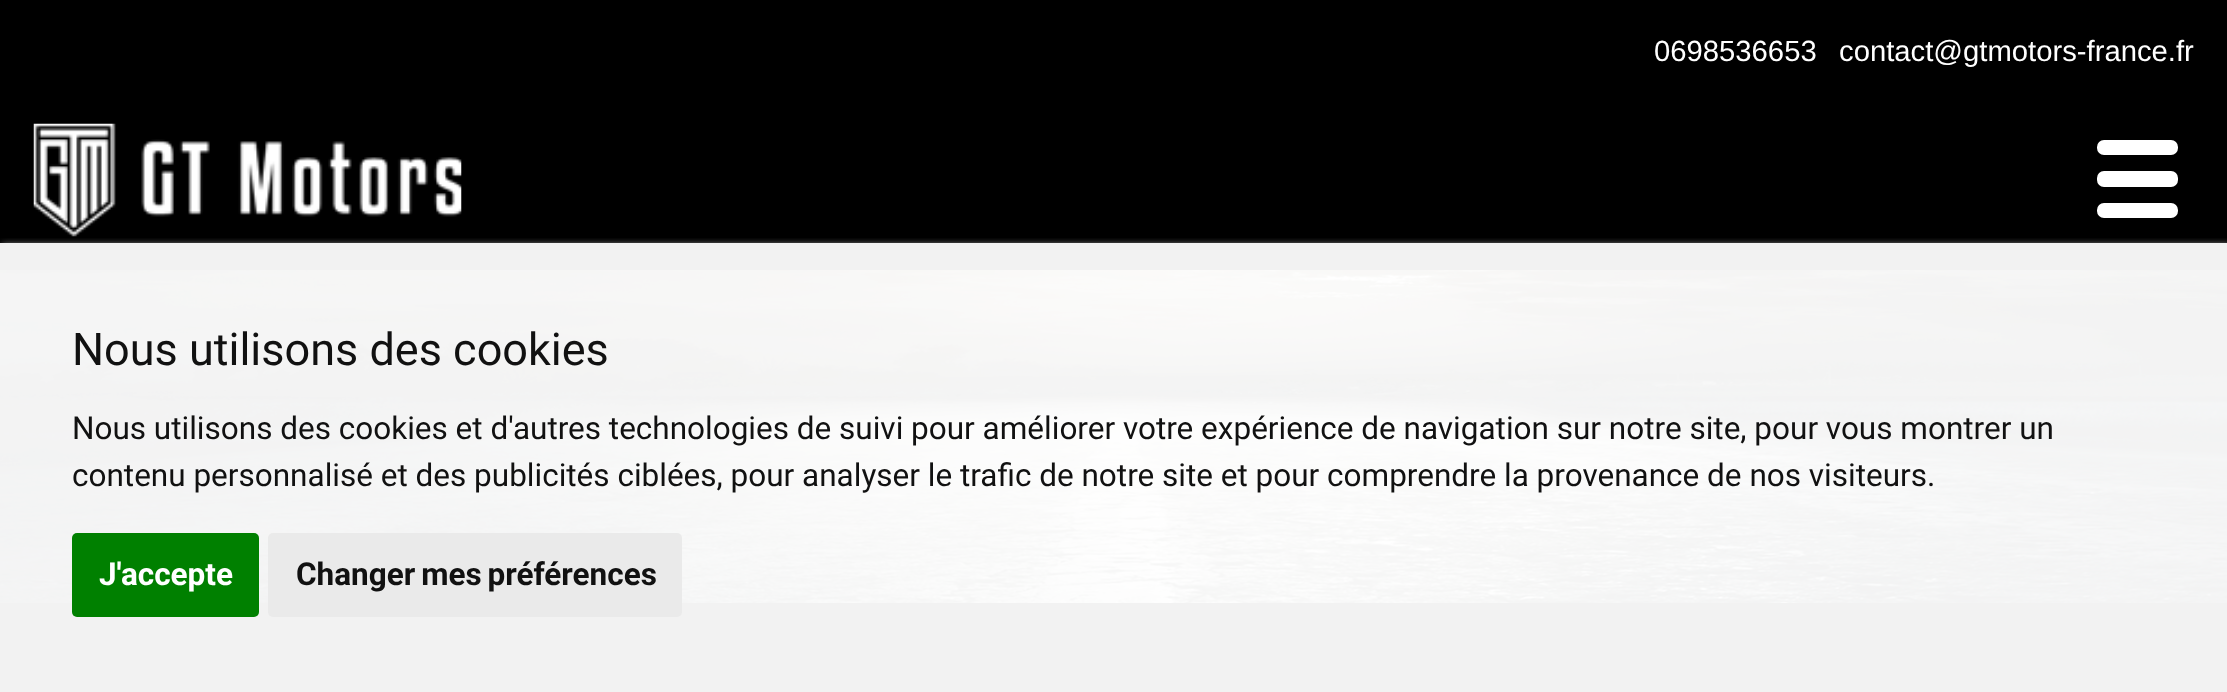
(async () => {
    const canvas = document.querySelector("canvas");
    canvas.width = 2227;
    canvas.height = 692;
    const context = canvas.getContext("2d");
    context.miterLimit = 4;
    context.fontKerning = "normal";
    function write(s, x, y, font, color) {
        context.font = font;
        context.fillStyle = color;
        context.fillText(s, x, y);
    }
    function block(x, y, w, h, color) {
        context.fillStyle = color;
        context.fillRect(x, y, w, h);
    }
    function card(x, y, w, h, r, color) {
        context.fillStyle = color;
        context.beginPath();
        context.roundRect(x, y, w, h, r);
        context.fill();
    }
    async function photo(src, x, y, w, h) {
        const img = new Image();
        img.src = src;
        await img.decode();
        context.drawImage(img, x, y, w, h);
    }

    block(0, 0, 2227, 692, "rgb(0, 0, 0)");
    block(0, 243, 2227, 449, "rgb(242, 242, 242)");
    write("0698536653", 1654, 61, "29.25px Liberation Sans", "rgb(255, 255, 255)");
    write("contact@gtmotors-france.fr", 1839, 61, "29.25px Liberation Sans", "rgb(255, 255, 255)");
    await photo("media/1.png", 33, 123, 429, 114);
    card(2097, 140, 81, 15, 7, "rgb(255, 255, 255)");
    card(2097, 171, 81, 16, 7, "rgb(255, 255, 255)");
    card(2097, 203, 81, 15, 7, "rgb(255, 255, 255)");
    await photo("media/2.png", 0, 270, 2227, 333);
    context.save();
    context.beginPath();
    context.rect(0, 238, 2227, 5);
    context.clip();
    context.fillStyle = "rgb(204, 204, 204)";
    context.filter = "blur(3.5px)";
    context.beginPath();
    context.rect(2, 245, 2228, 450);
    context.fill();
    context.filter = "none";
    context.restore();
    write("Nous utilisons des cookies", 72, 365, "45px Roboto", "rgb(17, 17, 17)");
    write("Nous utilisons des cookies et d'autres technologies de suivi pour améliorer votre expérience de navigation sur notre site, pour vous montrer un", 72, 439, "31.5px Roboto", "rgb(17, 17, 17)");
    write("contenu personnalisé et des publicités ciblées, pour analyser le trafic de notre site et pour comprendre la provenance de nos visiteurs.", 72, 486, "31.5px Roboto", "rgb(17, 17, 17)");
    card(72, 533, 187, 84, 5, "rgb(0, 128, 0)");
    write("J'accepte", 99, 585, "bold 31.5px Roboto", "rgb(255, 255, 255)");
    card(268, 533, 414, 84, 5, "rgb(234, 234, 234)");
    context.wordSpacing = "-2px";
    write("Changer mes préférences", 296, 585, "bold 31.5px Roboto", "rgb(17, 17, 17)");
})();
